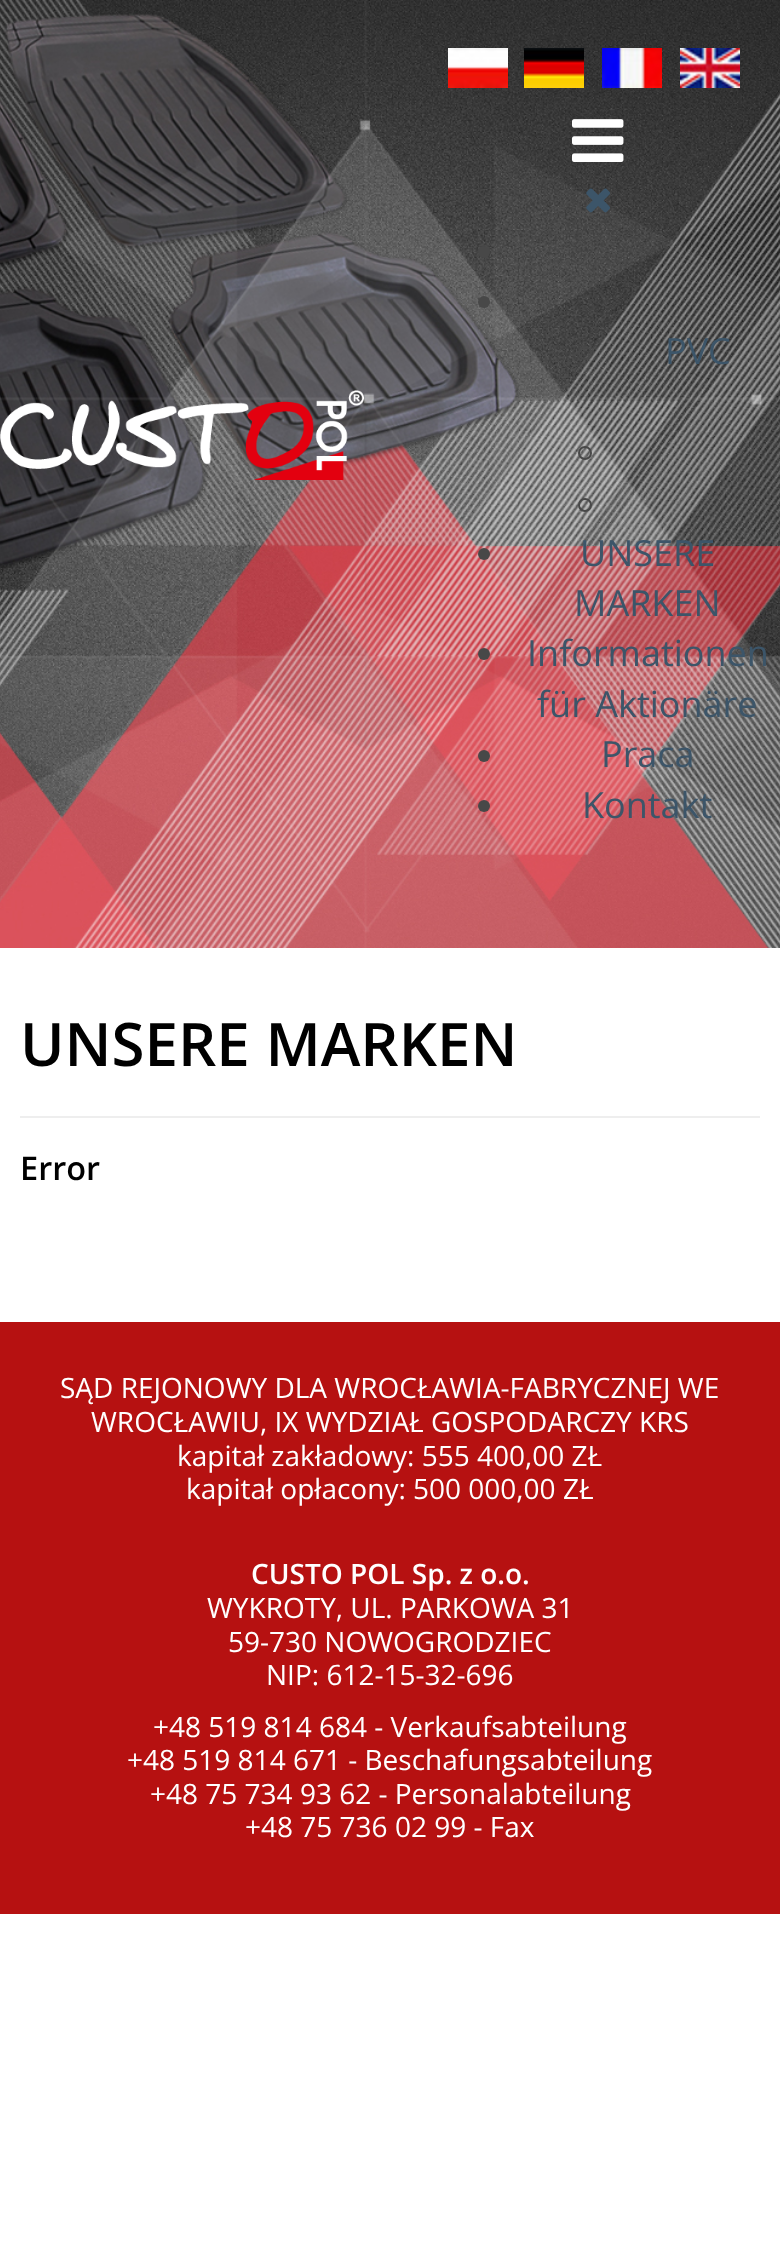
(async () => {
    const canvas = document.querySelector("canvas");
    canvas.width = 780;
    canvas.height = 2256;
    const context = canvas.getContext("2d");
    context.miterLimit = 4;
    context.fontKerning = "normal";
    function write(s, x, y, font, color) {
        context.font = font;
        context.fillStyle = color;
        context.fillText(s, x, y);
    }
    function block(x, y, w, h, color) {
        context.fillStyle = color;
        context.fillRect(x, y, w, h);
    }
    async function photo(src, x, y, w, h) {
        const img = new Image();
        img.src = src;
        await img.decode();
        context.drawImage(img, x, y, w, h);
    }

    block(0, 0, 780, 2256, "rgb(255, 255, 255)");
    await photo("media/1.png", 0, 0, 780, 948);
    await photo("media/2.png", 0, 390, 364, 90);
    await photo("media/3.png", 448, 48, 60, 40);
    await photo("media/4.png", 524, 48, 60, 40);
    await photo("media/5.png", 602, 48, 60, 40);
    await photo("media/6.png", 680, 48, 60, 40);
    await photo("media/7.png", 572, 119, 52, 43);
    await photo("media/8.png", 586, 188, 24, 25);
    context.fillStyle = "rgb(72, 72, 72)";
    context.beginPath();
    context.arc(484, 252, 6, 0, Math.PI * 2);
    context.fill();
    context.beginPath();
    context.arc(484, 302, 6, 0, Math.PI * 2);
    context.fill();
    context.beginPath();
    context.arc(585, 353, 6, 0, Math.PI * 2);
    context.strokeStyle = "rgb(72, 72, 72)";
    context.lineWidth = 2;
    context.stroke();
    write("PVC", 665, 364, "36px Open Sans", "rgb(60, 85, 105)");
    context.beginPath();
    context.arc(585, 453, 6, 0, Math.PI * 2);
    context.stroke();
    context.beginPath();
    context.arc(585, 505, 6, 0, Math.PI * 2);
    context.stroke();
    context.fillStyle = "rgb(72, 72, 72)";
    context.beginPath();
    context.arc(484, 554, 6, 0, Math.PI * 2);
    context.fill();
    write("UNSERE", 580, 566, "36px Open Sans", "rgb(60, 85, 105)");
    write("MARKEN", 574, 616, "36px Open Sans", "rgb(60, 85, 105)");
    context.fillStyle = "rgb(72, 72, 72)";
    context.beginPath();
    context.arc(484, 654, 6, 0, Math.PI * 2);
    context.fill();
    write("Informationen", 527, 666, "36px Open Sans", "rgb(60, 85, 105)");
    write("für Aktionäre", 537, 717, "36px Open Sans", "rgb(60, 85, 105)");
    context.fillStyle = "rgb(72, 72, 72)";
    context.beginPath();
    context.arc(484, 756, 6, 0, Math.PI * 2);
    context.fill();
    write("Praca", 601, 767, "36px Open Sans", "rgb(60, 85, 105)");
    context.fillStyle = "rgb(72, 72, 72)";
    context.beginPath();
    context.arc(484, 806, 6, 0, Math.PI * 2);
    context.fill();
    write("Kontakt", 582, 818, "36px Open Sans", "rgb(60, 85, 105)");
    block(20, 1116, 740, 2, "rgb(238, 238, 238)");
    write("UNSERE MARKEN", 20, 1066, "600 60px Open Sans", "rgb(0, 0, 0)");
    write("Error", 20, 1180, "600 32.5px Open Sans", "rgb(0, 0, 0)");
    block(0, 1322, 780, 592, "rgb(182, 17, 17)");
    write("SĄD REJONOWY DLA WROCŁAWIA-FABRYCZNEJ WE", 60, 1398, "28px Open Sans", "rgb(255, 255, 255)");
    write("WROCŁAWIU, IX WYDZIAŁ GOSPODARCZY KRS", 91, 1432, "28px Open Sans", "rgb(255, 255, 255)");
    write("kapitał zakładowy: 555 400,00 ZŁ", 177, 1466, "28px Open Sans", "rgb(255, 255, 255)");
    write("kapitał opłacony: 500 000,00 ZŁ", 186, 1499, "28px Open Sans", "rgb(255, 255, 255)");
    write("CUSTO POL Sp. z o.o.", 251, 1584, "600 28px Open Sans", "rgb(255, 255, 255)");
    write("WYKROTY, UL. PARKOWA 31", 207, 1618, "28px Open Sans", "rgb(255, 255, 255)");
    write("59-730 NOWOGRODZIEC", 228, 1652, "28px Open Sans", "rgb(255, 255, 255)");
    write("NIP: 612-15-32-696", 266, 1685, "28px Open Sans", "rgb(255, 255, 255)");
    write("+48 519 814 684 - Verkaufsabteilung", 153, 1737, "28px Open Sans", "rgb(255, 255, 255)");
    write("+48 519 814 671 - Beschafungsabteilung", 127, 1770, "28px Open Sans", "rgb(255, 255, 255)");
    write("+48 75 734 93 62 - Personalabteilung", 150, 1804, "28px Open Sans", "rgb(255, 255, 255)");
    write("+48 75 736 02 99 - Fax", 245, 1837, "28px Open Sans", "rgb(255, 255, 255)");
})();
